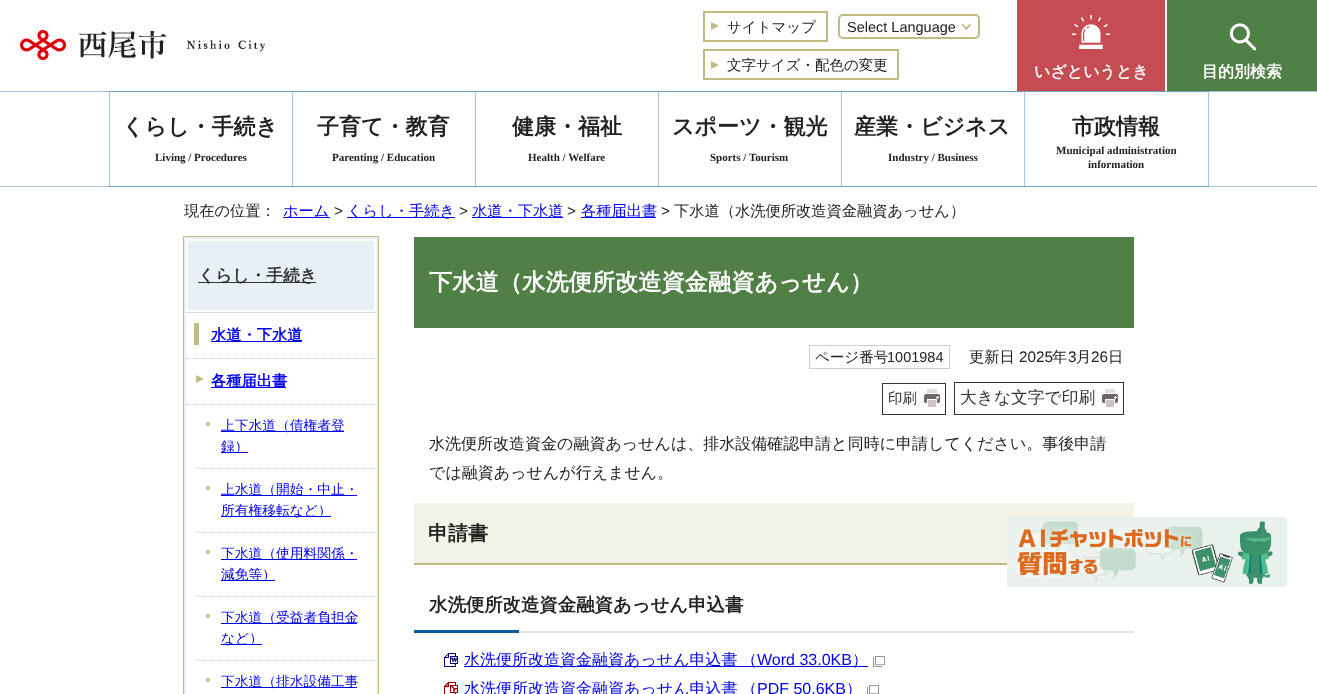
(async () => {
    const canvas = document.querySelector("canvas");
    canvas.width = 1317;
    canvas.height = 694;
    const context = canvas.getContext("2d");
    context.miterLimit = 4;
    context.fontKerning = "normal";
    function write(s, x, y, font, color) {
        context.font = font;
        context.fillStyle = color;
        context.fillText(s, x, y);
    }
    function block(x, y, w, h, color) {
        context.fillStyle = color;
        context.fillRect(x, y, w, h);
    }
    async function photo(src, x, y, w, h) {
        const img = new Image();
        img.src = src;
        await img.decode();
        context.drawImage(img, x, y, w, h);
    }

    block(0, 0, 1317, 694, "rgb(255, 255, 255)");
    block(109, 91, 1, 96, "rgb(166, 198, 219)");
    block(1208, 91, 1, 96, "rgb(166, 198, 219)");
    await photo("media/1.png", 20, 30, 245, 30);
    await photo("media/2.png", 711, 22, 8, 8);
    context.strokeStyle = "rgb(192, 188, 128)";
    context.lineWidth = 2;
    context.strokeRect(704, 12, 123, 29);
    write("サイトマップ", 727, 32, "500 14.5px WenQuanYi Zen Hei", "rgb(34, 34, 34)");
    context.beginPath();
    context.roundRect(839, 15, 140, 23, 4);
    context.stroke();
    write("Select Language", 847, 32, "14.5px Liberation Sans", "rgb(34, 34, 34)");
    context.fillStyle = "rgb(192, 188, 128)";
    context.beginPath();
    context.moveTo(971, 25);
    context.lineTo(966.5, 30);
    context.lineTo(965, 28.5);
    context.lineTo(970, 23.5);
    context.closePath();
    context.fill();
    context.beginPath();
    context.moveTo(967.5, 28.5);
    context.lineTo(966.5, 30);
    context.lineTo(961.5, 25);
    context.lineTo(962.5, 23.5);
    context.closePath();
    context.fill();
    await photo("media/2.png", 711, 61, 8, 8);
    context.strokeRect(704, 50, 194, 29);
    write("文字サイズ・配色の変更", 727, 70, "500 14.5px WenQuanYi Zen Hei", "rgb(34, 34, 34)");
    block(1017, 0, 148, 91, "rgb(197, 76, 83)");
    await photo("media/3.png", 1072, 15, 38, 34);
    write("いざというとき", 1034, 77, "bold 16px WenQuanYi Zen Hei", "rgb(255, 255, 255)");
    block(1167, 0, 150, 91, "rgb(79, 128, 69)");
    await photo("media/4.png", 1229, 23, 28, 28);
    write("目的別検索", 1202, 77, "bold 16px WenQuanYi Zen Hei", "rgb(255, 255, 255)");
    block(0, 91, 1317, 1, "rgb(166, 198, 219)");
    block(109, 91, 916, 1, "rgb(108, 161, 196)");
    block(1025, 91, 184, 1, "rgb(108, 161, 196)");
    block(0, 186, 1317, 1, "rgb(166, 198, 219)");
    block(109, 186, 916, 1, "rgb(108, 161, 196)");
    block(1025, 186, 184, 1, "rgb(108, 161, 196)");
    block(292, 92, 1, 94, "rgb(166, 198, 219)");
    write("くらし・手続き", 122, 134, "bold 22px WenQuanYi Zen Hei", "rgb(34, 34, 34)");
    write("Living / Procedures", 155, 161, "bold 11px Liberation Serif", "rgb(34, 34, 34)");
    block(475, 92, 1, 94, "rgb(166, 198, 219)");
    write("子育て・教育", 317, 134, "bold 22px WenQuanYi Zen Hei", "rgb(34, 34, 34)");
    write("Parenting / Education", 332, 161, "bold 11px Liberation Serif", "rgb(34, 34, 34)");
    block(658, 92, 1, 94, "rgb(166, 198, 219)");
    write("健康・福祉", 512, 134, "bold 22px WenQuanYi Zen Hei", "rgb(34, 34, 34)");
    write("Health / Welfare", 528, 161, "bold 11px Liberation Serif", "rgb(34, 34, 34)");
    block(841, 92, 1, 94, "rgb(166, 198, 219)");
    write("スポーツ・観光", 672, 134, "bold 22px WenQuanYi Zen Hei", "rgb(34, 34, 34)");
    write("Sports / Tourism", 710, 161, "bold 11px Liberation Serif", "rgb(34, 34, 34)");
    block(1024, 92, 1, 94, "rgb(166, 198, 219)");
    write("産業・ビジネス", 854, 134, "bold 22px WenQuanYi Zen Hei", "rgb(34, 34, 34)");
    write("Industry / Business", 888, 161, "bold 11px Liberation Serif", "rgb(34, 34, 34)");
    write("市政情報", 1072, 134, "bold 22px WenQuanYi Zen Hei", "rgb(34, 34, 34)");
    write("Municipal administration", 1056, 154, "bold 11px Liberation Serif", "rgb(34, 34, 34)");
    write("information", 1088, 168, "bold 11px Liberation Serif", "rgb(34, 34, 34)");
    write("現在の位置：", 184, 216, "500 15.25px WenQuanYi Zen Hei", "rgb(34, 34, 34)");
    block(283, 217, 47, 1, "rgb(0, 0, 238)");
    write("ホーム", 283, 216, "500 15.25px WenQuanYi Zen Hei", "rgb(0, 0, 238)");
    write(">", 334, 216, "15.25px Liberation Sans", "rgb(34, 34, 34)");
    block(347, 217, 108, 1, "rgb(0, 0, 238)");
    write("くらし・手続き", 347, 216, "500 15.25px WenQuanYi Zen Hei", "rgb(0, 0, 238)");
    write(">", 459, 216, "15.25px Liberation Sans", "rgb(34, 34, 34)");
    block(472, 217, 91, 1, "rgb(0, 0, 238)");
    write("水道・下水道", 472, 216, "500 15.25px WenQuanYi Zen Hei", "rgb(0, 0, 238)");
    write(">", 567, 216, "15.25px Liberation Sans", "rgb(34, 34, 34)");
    block(581, 217, 75, 1, "rgb(0, 0, 238)");
    write("各種届出書", 581, 216, "500 15.25px WenQuanYi Zen Hei", "rgb(0, 0, 238)");
    write(">", 661, 216, "15.25px Liberation Sans", "rgb(34, 34, 34)");
    write("下水道（水洗便所改造資金融資あっせん）", 674, 216, "500 15.25px WenQuanYi Zen Hei", "rgb(34, 34, 34)");
    context.strokeStyle = "rgb(231, 241, 245)";
    context.strokeRect(185, 238, 192, 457);
    block(187, 241, 189, 72, "rgb(231, 241, 245)");
    context.beginPath();
    context.moveTo(186, 312.5);
    context.lineTo(376, 312.5);
    context.strokeStyle = "rgb(204, 204, 204)";
    context.lineWidth = 1;
    context.setLineDash([1, 1]);
    context.stroke();
    context.strokeStyle = "rgb(255, 255, 255)";
    context.lineWidth = 2;
    context.setLineDash([]);
    context.strokeRect(187, 240, 188, 71);
    block(198, 282, 118, 1, "rgb(51, 51, 51)");
    context.beginPath();
    context.moveTo(186, 358.5);
    context.lineTo(376, 358.5);
    context.strokeStyle = "rgb(204, 204, 204)";
    context.lineWidth = 1;
    context.setLineDash([1, 1]);
    context.stroke();
    context.beginPath();
    context.moveTo(186, 404.5);
    context.lineTo(376, 404.5);
    context.stroke();
    context.beginPath();
    context.moveTo(196, 468.5);
    context.lineTo(376, 468.5);
    context.stroke();
    context.beginPath();
    context.moveTo(196, 532.5);
    context.lineTo(376, 532.5);
    context.stroke();
    context.beginPath();
    context.moveTo(196, 596.5);
    context.lineTo(376, 596.5);
    context.stroke();
    context.beginPath();
    context.moveTo(196, 660.5);
    context.lineTo(376, 660.5);
    context.stroke();
    context.strokeStyle = "rgb(192, 188, 128)";
    context.setLineDash([]);
    context.strokeRect(183.5, 236.5, 195, 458);
    write("くらし・手続き", 198, 281, "bold 16.75px WenQuanYi Zen Hei", "rgb(51, 51, 51)");
    block(194, 323, 5, 22, "rgb(192, 188, 128)");
    block(211, 341, 91, 1, "rgb(0, 0, 238)");
    write("水道・下水道", 211, 340, "bold 15.25px WenQuanYi Zen Hei", "rgb(0, 0, 238)");
    context.fillStyle = "rgb(192, 188, 128)";
    context.beginPath();
    context.moveTo(196, 383);
    context.lineTo(196, 375);
    context.lineTo(204, 379);
    context.closePath();
    context.fill();
    block(211, 387, 75, 1, "rgb(0, 0, 238)");
    write("各種届出書", 211, 386, "bold 15.25px WenQuanYi Zen Hei", "rgb(0, 0, 238)");
    context.fillStyle = "rgb(192, 188, 128)";
    context.beginPath();
    context.arc(208, 424, 2, 0, Math.PI * 2);
    context.fill();
    block(221, 431, 123, 1, "rgb(0, 0, 238)");
    write("上下水道（債権者登", 221, 430, "500 13.75px WenQuanYi Zen Hei", "rgb(0, 0, 238)");
    block(221, 452, 27, 1, "rgb(0, 0, 238)");
    write("録）", 221, 451, "500 13.75px WenQuanYi Zen Hei", "rgb(0, 0, 238)");
    context.fillStyle = "rgb(192, 188, 128)";
    context.beginPath();
    context.arc(208, 488, 2, 0, Math.PI * 2);
    context.fill();
    block(221, 495, 136, 1, "rgb(0, 0, 238)");
    write("上水道（開始・中止・", 221, 494, "500 13.75px WenQuanYi Zen Hei", "rgb(0, 0, 238)");
    block(221, 516, 110, 1, "rgb(0, 0, 238)");
    write("所有権移転など）", 221, 515, "500 13.75px WenQuanYi Zen Hei", "rgb(0, 0, 238)");
    context.fillStyle = "rgb(192, 188, 128)";
    context.beginPath();
    context.arc(208, 552, 2, 0, Math.PI * 2);
    context.fill();
    block(221, 559, 136, 1, "rgb(0, 0, 238)");
    write("下水道（使用料関係・", 221, 558, "500 13.75px WenQuanYi Zen Hei", "rgb(0, 0, 238)");
    block(221, 580, 54, 1, "rgb(0, 0, 238)");
    write("減免等）", 221, 579, "500 13.75px WenQuanYi Zen Hei", "rgb(0, 0, 238)");
    context.fillStyle = "rgb(192, 188, 128)";
    context.beginPath();
    context.arc(208, 616, 2, 0, Math.PI * 2);
    context.fill();
    block(221, 623, 136, 1, "rgb(0, 0, 238)");
    write("下水道（受益者負担金", 221, 622, "500 13.75px WenQuanYi Zen Hei", "rgb(0, 0, 238)");
    block(221, 644, 41, 1, "rgb(0, 0, 238)");
    write("など）", 221, 643, "500 13.75px WenQuanYi Zen Hei", "rgb(0, 0, 238)");
    context.fillStyle = "rgb(192, 188, 128)";
    context.beginPath();
    context.arc(208, 680, 2, 0, Math.PI * 2);
    context.fill();
    block(221, 687, 136, 1, "rgb(0, 0, 238)");
    write("下水道（排水設備工事", 221, 686, "500 13.75px WenQuanYi Zen Hei", "rgb(0, 0, 238)");
    block(414, 237, 720, 91, "rgb(80, 128, 69)");
    write("下水道（水洗便所改造資金融資あっせん）", 429, 290, "bold 23.25px WenQuanYi Zen Hei", "rgb(255, 255, 255)");
    context.strokeStyle = "rgb(204, 204, 204)";
    context.strokeRect(809.5, 345.5, 140, 23);
    write("ページ番号", 815, 362, "500 14.5px WenQuanYi Zen Hei", "rgb(34, 34, 34)");
    write("1001984", 887, 362, "14.5px Liberation Sans", "rgb(34, 34, 34)");
    write("更新日", 969, 362, "500 15.25px WenQuanYi Zen Hei", "rgb(34, 34, 34)");
    write("2025", 1019, 362, "15.25px Liberation Sans", "rgb(34, 34, 34)");
    write("年", 1052, 362, "500 15.25px WenQuanYi Zen Hei", "rgb(34, 34, 34)");
    write("3", 1068, 362, "15.25px Liberation Sans", "rgb(34, 34, 34)");
    write("月", 1076, 362, "500 15.25px WenQuanYi Zen Hei", "rgb(34, 34, 34)");
    write("26", 1091, 362, "15.25px Liberation Sans", "rgb(34, 34, 34)");
    write("日", 1108, 362, "500 15.25px WenQuanYi Zen Hei", "rgb(34, 34, 34)");
    context.strokeStyle = "rgb(51, 51, 51)";
    context.strokeRect(882.5, 383.5, 63, 31);
    await photo("media/5.png", 924, 389, 16, 18);
    write("印刷", 888, 403, "500 14.5px WenQuanYi Zen Hei", "rgb(51, 51, 51)");
    context.strokeRect(954.5, 382.5, 169, 32);
    await photo("media/5.png", 1102, 389, 16, 18);
    write("大きな文字で印刷", 960, 403, "500 16.75px WenQuanYi Zen Hei", "rgb(51, 51, 51)");
    write("水洗便所改造資金の融資あっせんは、排水設備確認申請と同時に申請してください。事後申請", 429, 449, "500 16px WenQuanYi Zen Hei", "rgb(34, 34, 34)");
    write("では融資あっせんが行えません。", 429, 478, "500 16px WenQuanYi Zen Hei", "rgb(34, 34, 34)");
    block(414, 503, 720, 60, "rgb(242, 242, 230)");
    block(414, 563, 593, 2, "rgb(192, 188, 128)");
    write("申請書", 428, 540, "bold 20px WenQuanYi Zen Hei", "rgb(34, 34, 34)");
    block(519, 631, 615, 2, "rgb(228, 228, 228)");
    write("水洗便所改造資金融資あっせん申込書", 429, 611, "bold 18.4px WenQuanYi Zen Hei", "rgb(34, 34, 34)");
    block(414, 630, 105, 3, "rgb(0, 91, 152)");
    await photo("media/6.png", 444, 653, 14, 14);
    block(464, 666, 404, 1, "rgb(0, 0, 238)");
    write("水洗便所改造資金融資あっせん申込書", 464, 665, "500 16px WenQuanYi Zen Hei", "rgb(0, 0, 238)");
    write("（", 741, 665, "500 16px WenQuanYi Zen Hei", "rgb(0, 0, 238)");
    write("Word 33.0KB", 757, 665, "16px Liberation Sans", "rgb(0, 0, 238)");
    write("）", 852, 665, "500 16px WenQuanYi Zen Hei", "rgb(0, 0, 238)");
    await photo("media/7.png", 873, 656, 12, 11);
    await photo("media/8.png", 444, 682, 14, 12);
    write("水洗便所改造資金融資あっせん申込書", 464, 694, "500 16px WenQuanYi Zen Hei", "rgb(0, 0, 238)");
    write("（", 741, 694, "500 16px WenQuanYi Zen Hei", "rgb(0, 0, 238)");
    write("PDF 50.6KB", 757, 694, "16px Liberation Sans", "rgb(0, 0, 238)");
    write("）", 846, 694, "500 16px WenQuanYi Zen Hei", "rgb(0, 0, 238)");
    await photo("media/9.png", 867, 685, 12, 9);
    await photo("media/10.png", 1007, 517, 280, 70);
})();
